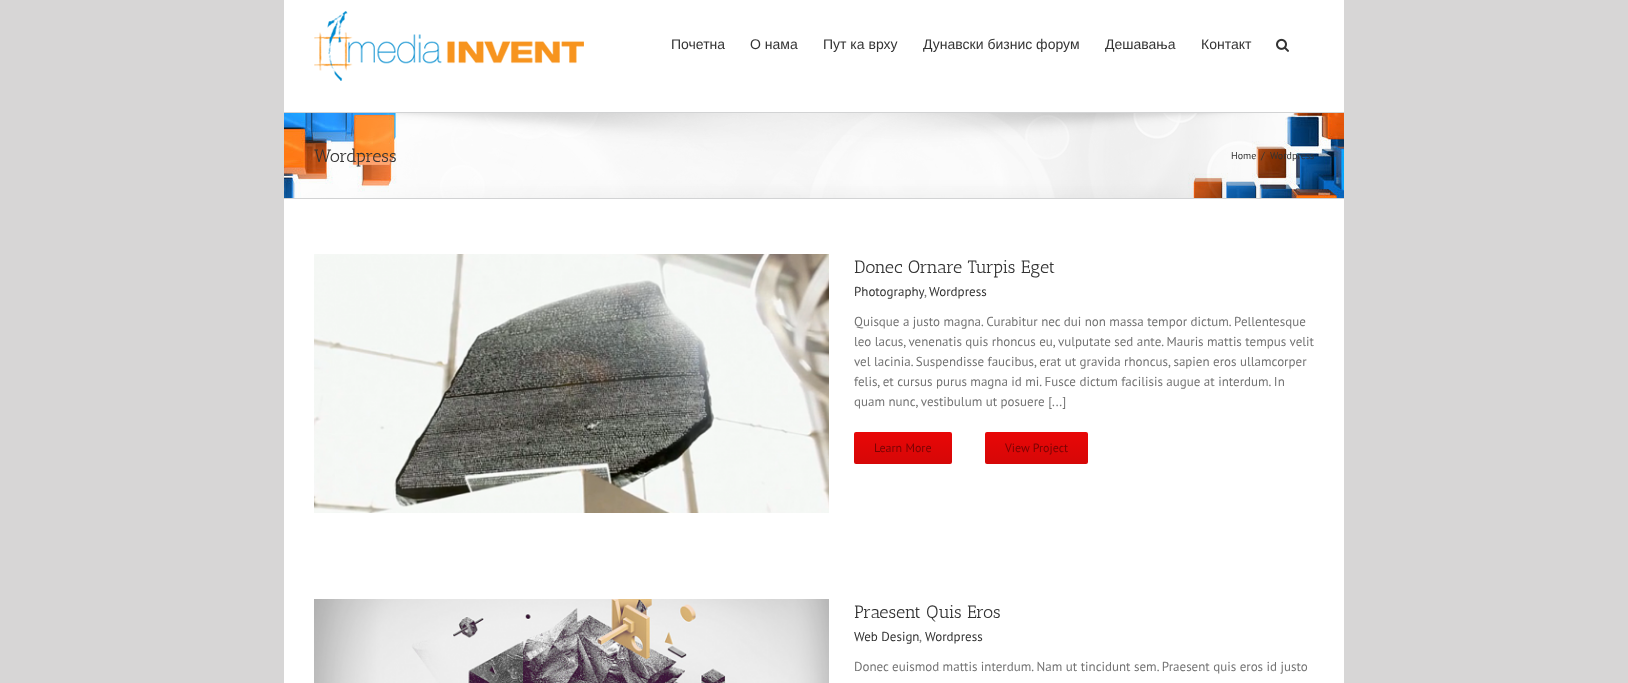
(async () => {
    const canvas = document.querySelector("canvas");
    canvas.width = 1628;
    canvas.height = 683;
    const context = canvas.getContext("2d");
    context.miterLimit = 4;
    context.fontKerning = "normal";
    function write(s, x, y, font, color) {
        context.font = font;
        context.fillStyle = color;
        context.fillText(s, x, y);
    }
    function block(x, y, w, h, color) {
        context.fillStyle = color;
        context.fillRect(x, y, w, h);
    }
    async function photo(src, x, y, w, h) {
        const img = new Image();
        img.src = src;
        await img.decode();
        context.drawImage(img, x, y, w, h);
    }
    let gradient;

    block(0, 0, 1628, 683, "rgb(215, 214, 214)");
    block(284, 0, 1060, 112, "rgb(255, 255, 255)");
    await photo("media/1.png", 314, 11, 270, 70);
    write("Почетна", 671, 49, "14px Liberation Sans", "rgb(51, 51, 51)");
    write("О нама", 750, 49, "14px Liberation Sans", "rgb(51, 51, 51)");
    write("Пут ка врху", 823, 49, "14px Liberation Sans", "rgb(51, 51, 51)");
    write("Дунавски бизнис форум", 923, 49, "14px Liberation Sans", "rgb(51, 51, 51)");
    write("Дешавања", 1105, 49, "14px Liberation Sans", "rgb(51, 51, 51)");
    write("Контакт", 1201, 49, "14px Liberation Sans", "rgb(51, 51, 51)");
    await photo("media/2.png", 1276, 38, 13, 14);
    await photo("media/3.png", 284, 113, 1060, 85);
    block(284, 112, 1060, 1, "rgb(210, 211, 212)");
    block(284, 198, 1060, 1, "rgb(210, 211, 212)");
    write("Wordpress", 314, 162, "18px Antic Slab", "rgb(51, 51, 51)");
    write("Home", 1231, 159, "10px PT Sans", "rgb(51, 51, 51)");
    write("/", 1261, 159, "10px PT Sans", "rgb(51, 51, 51)");
    write("Wordpress", 1270, 159, "10px PT Sans", "rgb(51, 51, 51)");
    block(284, 199, 1060, 484, "rgb(255, 255, 255)");
    await photo("media/4.png", 314, 254, 515, 259);
    write("Donec Ornare Turpis Eget", 854, 273, "18px Antic Slab", "rgb(51, 51, 51)");
    write("Photography", 854, 296, "13px PT Sans", "rgb(51, 51, 51)");
    write("Wordpress", 929, 296, "13px PT Sans", "rgb(51, 51, 51)");
    write(",", 924, 296, "13px PT Sans", "rgb(116, 116, 116)");
    write("Quisque a justo magna. Curabitur nec dui non massa tempor dictum. Pellentesque", 854, 326, "13px PT Sans", "rgb(116, 116, 116)");
    write("leo lacus, venenatis quis rhoncus eu, vulputate sed ante. Mauris mattis tempus velit", 854, 346, "13px PT Sans", "rgb(116, 116, 116)");
    write("vel lacinia. Suspendisse faucibus, erat ut gravida rhoncus, sapien eros ullamcorper", 854, 366, "13px PT Sans", "rgb(116, 116, 116)");
    write("felis, et cursus purus magna id mi. Fusce dictum facilisis augue at interdum. In", 854, 386, "13px PT Sans", "rgb(116, 116, 116)");
    write("quam nunc, vestibulum ut posuere [...]", 854, 406, "13px PT Sans", "rgb(116, 116, 116)");
    gradient = context.createLinearGradient(903, 432, 903, 464);
    gradient.addColorStop(0, "rgb(232, 7, 7)");
    gradient.addColorStop(1, "rgb(214, 7, 7)");
    context.fillStyle = gradient;
    context.beginPath();
    context.roundRect(854, 432, 98, 32, 2);
    context.fill();
    write("Learn More", 874, 452, "12px PT Sans", "rgb(120, 4, 4)");
    gradient = context.createLinearGradient(1037, 432, 1037, 464);
    gradient.addColorStop(0, "rgb(232, 7, 7)");
    gradient.addColorStop(1, "rgb(214, 7, 7)");
    context.fillStyle = gradient;
    context.beginPath();
    context.roundRect(985, 432, 103, 32, 2);
    context.fill();
    write("View Project", 1005, 452, "12px PT Sans", "rgb(120, 4, 4)");
    await photo("media/5.png", 314, 599, 515, 84);
    write("Praesent Quis Eros", 854, 618, "18px Antic Slab", "rgb(51, 51, 51)");
    write("Web Design", 854, 641, "13px PT Sans", "rgb(51, 51, 51)");
    write(",", 919, 641, "13px PT Sans", "rgb(116, 116, 116)");
    write("Wordpress", 925, 641, "13px PT Sans", "rgb(51, 51, 51)");
    write("Donec euismod mattis interdum. Nam ut tincidunt sem. Praesent quis eros id justo", 854, 671, "13px PT Sans", "rgb(116, 116, 116)");
})();
